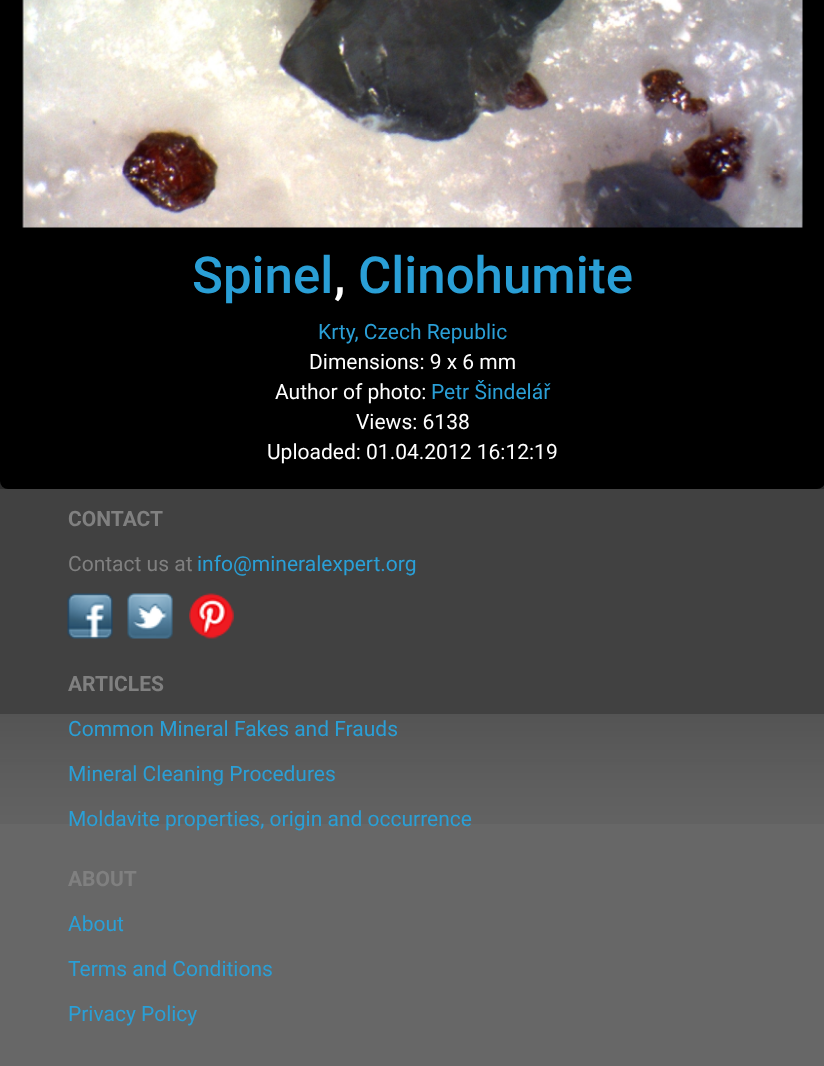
(async () => {
    const canvas = document.querySelector("canvas");
    canvas.width = 824;
    canvas.height = 1066;
    const context = canvas.getContext("2d");
    context.miterLimit = 4;
    context.fontKerning = "normal";
    function write(s, x, y, font, color) {
        context.font = font;
        context.fillStyle = color;
        context.fillText(s, x, y);
    }
    function block(x, y, w, h, color) {
        context.fillStyle = color;
        context.fillRect(x, y, w, h);
    }
    function card(x, y, w, h, r, color) {
        context.fillStyle = color;
        context.beginPath();
        context.roundRect(x, y, w, h, r);
        context.fill();
    }
    async function photo(src, x, y, w, h) {
        const img = new Image();
        img.src = src;
        await img.decode();
        context.drawImage(img, x, y, w, h);
    }

    block(0, 0, 824, 1066, "rgb(103, 103, 103)");
    await photo("media/1.png", 0, 481, 824, 343);
    card(0, -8, 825, 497, 8, "rgb(0, 0, 0)");
    await photo("media/2.png", 22, 0, 781, 228);
    write("Spinel", 192, 293, "500 51px Roboto", "rgb(42, 159, 214)");
    write(",", 334, 293, "500 51px Roboto", "rgb(255, 255, 255)");
    write("Clinohumite", 358, 293, "500 51px Roboto", "rgb(42, 159, 214)");
    write("Krty, Czech Republic", 318, 339, "21px Roboto", "rgb(42, 159, 214)");
    write("Dimensions: 9 x 6 mm", 309, 369, "21px Roboto", "rgb(255, 255, 255)");
    write("Author of photo:", 275, 399, "21px Roboto", "rgb(255, 255, 255)");
    write("Petr Šindelář", 431, 399, "21px Roboto", "rgb(42, 159, 214)");
    write("Views: 6138", 356, 429, "21px Roboto", "rgb(255, 255, 255)");
    write("Uploaded: 01.04.2012 16:12:19", 267, 459, "21px Roboto", "rgb(255, 255, 255)");
    block(0, 489, 824, 225, "rgb(65, 65, 65)");
    write("CONTACT", 68, 526, "bold 21px Roboto", "rgb(128, 128, 128)");
    write("Contact us at", 68, 571, "21px Roboto", "rgb(128, 128, 128)");
    write("info@mineralexpert.org", 197, 571, "21px Roboto", "rgb(42, 159, 214)");
    await photo("media/3.png", 67, 593, 46, 46);
    await photo("media/4.png", 127, 593, 46, 46);
    await photo("media/5.png", 189, 593, 45, 46);
    write("ARTICLES", 68, 691, "bold 21px Roboto", "rgb(128, 128, 128)");
    write("Common Mineral Fakes and Frauds", 68, 736, "21px Roboto", "rgb(42, 159, 214)");
    write("Mineral Cleaning Procedures", 68, 781, "21px Roboto", "rgb(42, 159, 214)");
    write("Moldavite properties, origin and occurrence", 68, 826, "21px Roboto", "rgb(42, 159, 214)");
    write("ABOUT", 68, 886, "bold 21px Roboto", "rgb(128, 128, 128)");
    write("About", 68, 931, "21px Roboto", "rgb(42, 159, 214)");
    write("Terms and Conditions", 68, 976, "21px Roboto", "rgb(42, 159, 214)");
    write("Privacy Policy", 68, 1021, "21px Roboto", "rgb(42, 159, 214)");
})();
